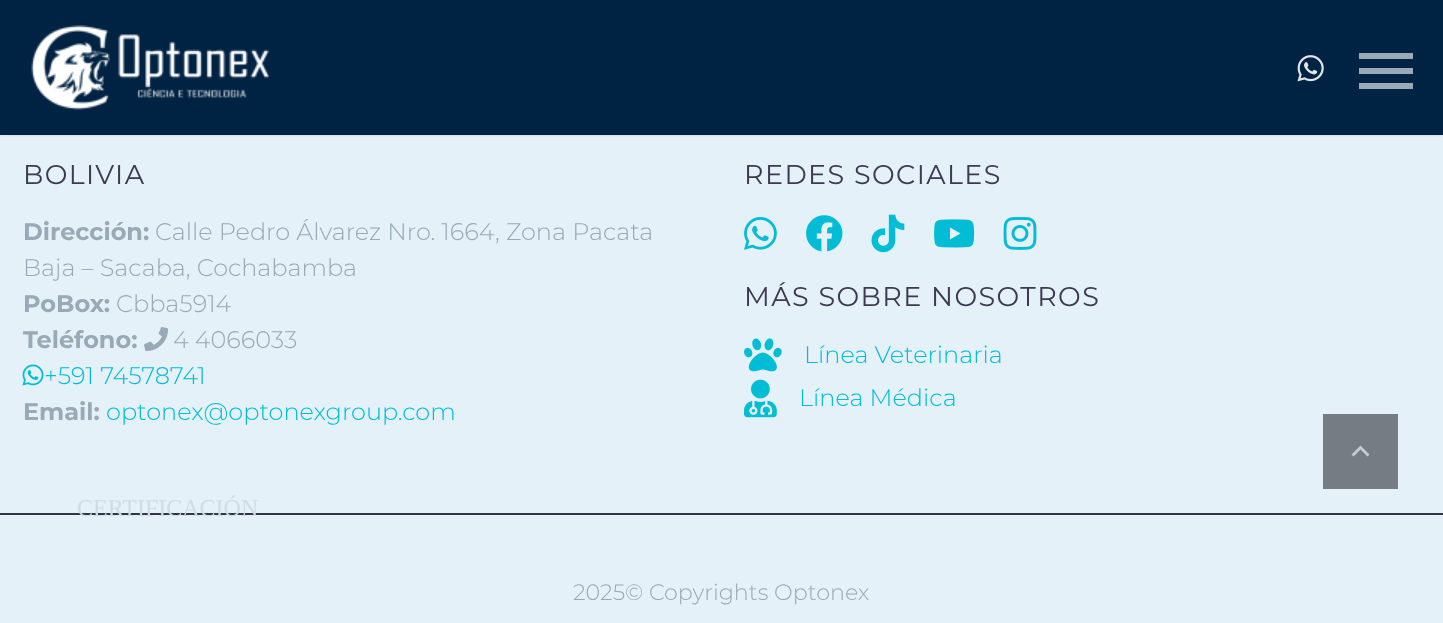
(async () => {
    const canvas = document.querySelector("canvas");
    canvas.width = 1443;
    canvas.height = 623;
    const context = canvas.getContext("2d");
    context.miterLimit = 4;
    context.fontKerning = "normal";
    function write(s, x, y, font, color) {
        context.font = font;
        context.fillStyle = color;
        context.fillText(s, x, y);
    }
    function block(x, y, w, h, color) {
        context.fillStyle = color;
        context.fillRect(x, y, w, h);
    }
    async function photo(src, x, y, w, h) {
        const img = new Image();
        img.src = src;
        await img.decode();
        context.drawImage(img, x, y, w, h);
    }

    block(0, 0, 1443, 623, "rgb(228, 241, 249)");
    context.letterSpacing = "1.4px";
    write("BOLIVIA", 23, 184, "27px Montserrat", "rgb(60, 57, 80)");
    context.letterSpacing = "0px";
    write("Dirección:", 23, 240, "bold 24px Montserrat", "rgb(153, 169, 181)");
    write("Calle Pedro Álvarez Nro. 1664, Zona Pacata", 155, 240, "300 24px Montserrat", "rgb(153, 169, 181)");
    write("Baja – Sacaba, Cochabamba", 23, 276, "300 24px Montserrat", "rgb(153, 169, 181)");
    write("PoBox:", 23, 312, "bold 24px Montserrat", "rgb(153, 169, 181)");
    write("Cbba5914", 116, 312, "300 24px Montserrat", "rgb(153, 169, 181)");
    write("Teléfono:", 23, 348, "bold 24px Montserrat", "rgb(153, 169, 181)");
    await photo("media/1.png", 144, 327, 24, 24);
    write("4 4066033", 173, 348, "300 24px Montserrat", "rgb(153, 169, 181)");
    await photo("media/2.png", 22, 364, 22, 22);
    write("+591 74578741", 44, 384, "300 24px Montserrat", "rgb(0, 188, 212)");
    write("Email:", 23, 420, "bold 24px Montserrat", "rgb(153, 169, 181)");
    write("optonex@optonexgroup.com", 106, 420, "300 24px Montserrat", "rgb(0, 188, 212)");
    context.letterSpacing = "1.4px";
    write("REDES SOCIALES", 744, 184, "27px Montserrat", "rgb(60, 57, 80)");
    await photo("media/3.png", 744, 217, 33, 33);
    await photo("media/4.png", 806, 215, 37, 37);
    await photo("media/5.png", 871, 214, 34, 39);
    await photo("media/6.png", 934, 219, 41, 29);
    await photo("media/7.png", 1003, 217, 34, 33);
    write("MÁS SOBRE NOSOTROS", 744, 306, "27px Montserrat", "rgb(60, 57, 80)");
    await photo("media/8.png", 744, 338, 38, 34);
    context.letterSpacing = "0px";
    write("Línea Veterinaria", 804, 363, "300 24px Montserrat", "rgb(0, 188, 212)");
    await photo("media/9.png", 744, 379, 33, 39);
    write("Línea Médica", 799, 406, "300 24px Montserrat", "rgb(0, 188, 212)");
    block(1323, 414, 75, 75, "rgb(117, 124, 132)");
    context.fillStyle = "rgb(191, 205, 215)";
    context.beginPath();
    context.moveTo(1353.5, 456.5);
    context.lineTo(1360.5, 449.5);
    context.lineTo(1367.5, 456.5);
    context.lineTo(1369.5, 454.5);
    context.lineTo(1360.5, 445.5);
    context.lineTo(1351.5, 454.5);
    context.closePath();
    context.fill();
    context.fillStyle = "rgba(56, 69, 84, 0.2)";
    context.filter = "blur(1.5px)";
    context.beginPath();
    context.rect(0, 0, 1443, 135);
    context.fill();
    context.filter = "none";
    block(0, 0, 1443, 135, "rgb(0, 35, 67)");
    await photo("media/10.png", 31, 25, 239, 85);
    await photo("media/11.png", 1297, 55, 27, 27);
    block(1359, 53, 54, 6, "rgb(153, 169, 181)");
    block(1359, 68, 54, 6, "rgb(153, 169, 181)");
    block(1359, 83, 54, 6, "rgb(153, 169, 181)");
    block(0, 513, 1443, 2, "rgb(49, 54, 70)");
    write("CERTIFICACIÓN", 77, 516, "24px Liberation Serif", "rgb(208, 220, 229)");
    write("2025© Copyrights Optonex", 573, 600, "300 22.25px Montserrat", "rgb(153, 169, 181)");
})();
